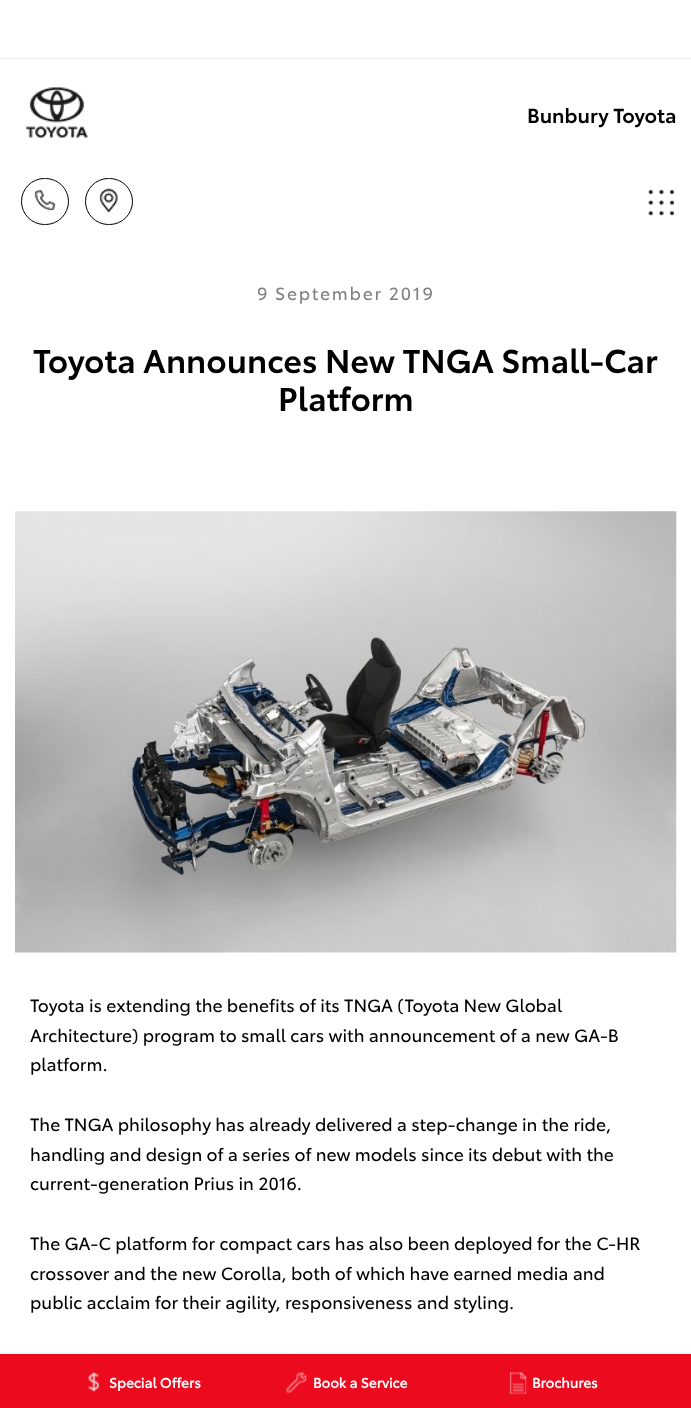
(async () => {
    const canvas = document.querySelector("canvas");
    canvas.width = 691;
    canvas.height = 1408;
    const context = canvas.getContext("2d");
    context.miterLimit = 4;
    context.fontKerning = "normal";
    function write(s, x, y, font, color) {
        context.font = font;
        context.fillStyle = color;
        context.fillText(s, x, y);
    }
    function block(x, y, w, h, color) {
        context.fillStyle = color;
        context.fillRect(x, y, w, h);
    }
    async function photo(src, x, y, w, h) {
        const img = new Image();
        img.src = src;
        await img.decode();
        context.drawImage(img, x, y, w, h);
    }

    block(0, 0, 691, 1408, "rgb(255, 255, 255)");
    block(0, 58, 691, 1, "rgb(238, 238, 238)");
    await photo("media/1.png", 26, 87, 62, 51);
    write("Bunbury Toyota", 527, 123, "600 20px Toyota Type", "rgb(0, 0, 0)");
    await photo("media/2.png", 34, 189, 22, 22);
    context.beginPath();
    context.roundRect(21.5, 178.5, 47, 46, 23);
    context.strokeStyle = "rgb(0, 0, 0)";
    context.stroke();
    await photo("media/3.png", 99, 188, 19, 25);
    context.beginPath();
    context.roundRect(85.5, 178.5, 47, 46, 23);
    context.stroke();
    await photo("media/4.png", 648, 189, 26, 27);
    context.letterSpacing = "1.75px";
    write("9 September 2019", 257, 300, "17.5px Toyota Type", "rgb(128, 128, 128)");
    context.letterSpacing = "0px";
    write("Toyota Announces New TNGA Small-Car", 33, 373, "600 32.5px Toyota Type", "rgb(0, 0, 0)");
    write("Platform", 278, 411, "600 32.5px Toyota Type", "rgb(0, 0, 0)");
    await photo("media/5.png", 15, 511, 662, 442);
    write("Toyota is extending the benefits of its TNGA (Toyota New Global", 30, 1012, "17.5px Toyota Type", "rgb(0, 0, 0)");
    write("Architecture) program to small cars with announcement of a new GA-B", 30, 1042, "17.5px Toyota Type", "rgb(0, 0, 0)");
    write("platform.", 30, 1071, "17.5px Toyota Type", "rgb(0, 0, 0)");
    write("The TNGA philosophy has already delivered a step-change in the ride,", 30, 1131, "17.5px Toyota Type", "rgb(0, 0, 0)");
    write("handling and design of a series of new models since its debut with the", 30, 1161, "17.5px Toyota Type", "rgb(0, 0, 0)");
    write("current-generation Prius in 2016.", 30, 1190, "17.5px Toyota Type", "rgb(0, 0, 0)");
    write("The GA-C platform for compact cars has also been deployed for the C-HR", 30, 1250, "17.5px Toyota Type", "rgb(0, 0, 0)");
    write("crossover and the new Corolla, both of which have earned media and", 30, 1280, "17.5px Toyota Type", "rgb(0, 0, 0)");
    write("public acclaim for their agility, responsiveness and styling.", 30, 1309, "17.5px Toyota Type", "rgb(0, 0, 0)");
    block(0, 1354, 691, 54, "rgb(235, 10, 30)");
    await photo("media/6.png", 88, 1372, 11, 20);
    write("Special Offers", 109, 1388, "bold 13.75px Toyota Type", "rgb(255, 255, 255)");
    await photo("media/7.png", 286, 1372, 21, 22);
    write("Book a Service", 313, 1388, "bold 13.75px Toyota Type", "rgb(255, 255, 255)");
    await photo("media/8.png", 509, 1372, 18, 23);
    write("Brochures", 532, 1388, "bold 13.75px Toyota Type", "rgb(255, 255, 255)");
})();
